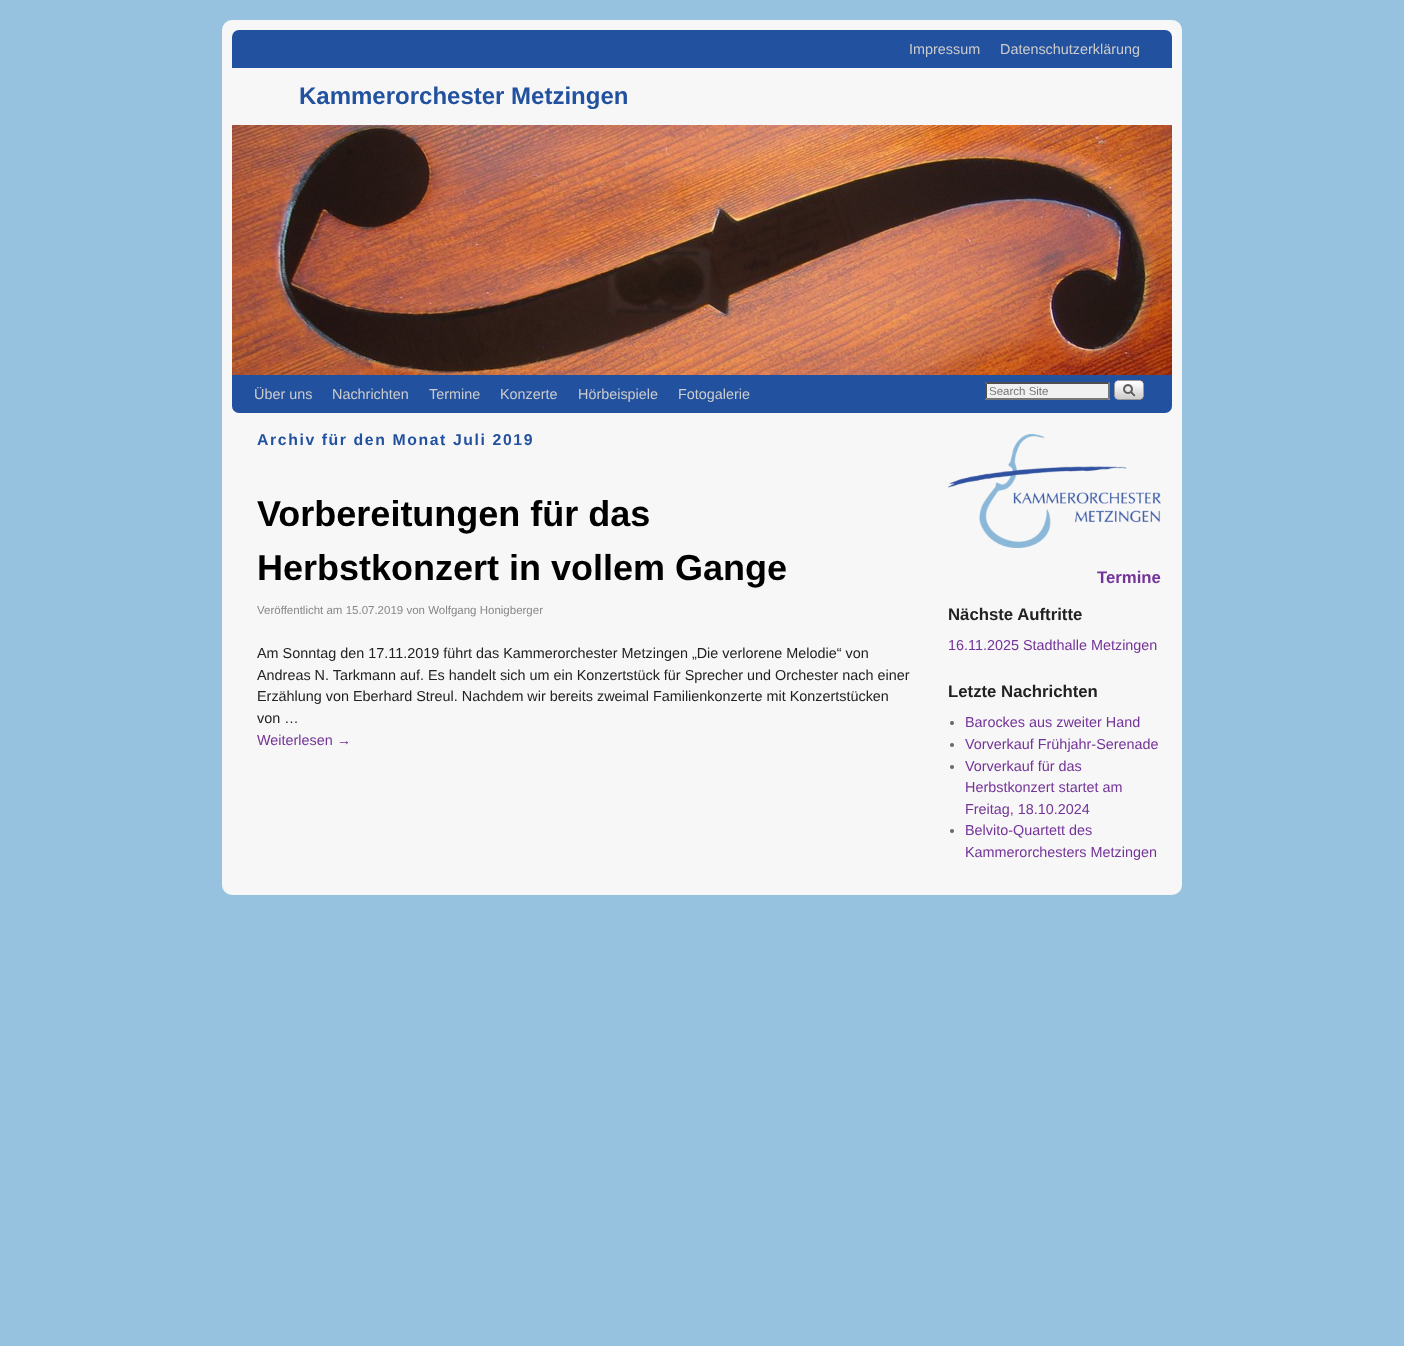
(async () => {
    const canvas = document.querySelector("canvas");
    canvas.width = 1404;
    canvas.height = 1346;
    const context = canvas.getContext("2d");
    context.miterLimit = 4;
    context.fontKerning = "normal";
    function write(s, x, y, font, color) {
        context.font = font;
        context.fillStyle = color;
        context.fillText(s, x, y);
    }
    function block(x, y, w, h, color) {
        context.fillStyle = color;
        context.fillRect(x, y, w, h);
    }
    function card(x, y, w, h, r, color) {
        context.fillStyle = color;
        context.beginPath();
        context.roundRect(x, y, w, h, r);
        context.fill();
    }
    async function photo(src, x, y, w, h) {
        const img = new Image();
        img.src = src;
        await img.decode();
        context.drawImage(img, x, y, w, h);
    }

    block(0, 0, 1404, 1346, "rgb(150, 194, 223)");
    card(222, 20, 960, 875, 10, "rgb(247, 247, 247)");
    context.fillStyle = "rgb(34, 81, 159)";
    context.beginPath();
    context.roundRect(232, 30, 940, 38, [7, 7, 0, 0]);
    context.fill();
    write("Impressum", 909, 54, "14.4px Liberation Sans", "rgb(204, 204, 204)");
    write("Datenschutzerklärung", 1000, 54, "14.4px Liberation Sans", "rgb(204, 204, 204)");
    write("Kammerorchester Metzingen", 299, 104, "bold 24px Liberation Sans", "rgb(34, 81, 159)");
    await photo("media/1.png", 232, 125, 940, 250);
    context.beginPath();
    context.roundRect(232, 375, 940, 38, [0, 0, 7, 7]);
    context.fill();
    write("Über uns", 254, 399, "14.4px Liberation Sans", "rgb(204, 204, 204)");
    write("Nachrichten", 332, 399, "14.4px Liberation Sans", "rgb(204, 204, 204)");
    write("Termine", 429, 399, "14.4px Liberation Sans", "rgb(204, 204, 204)");
    write("Konzerte", 500, 399, "14.4px Liberation Sans", "rgb(204, 204, 204)");
    write("Hörbeispiele", 578, 399, "14.4px Liberation Sans", "rgb(204, 204, 204)");
    write("Fotogalerie", 678, 399, "14.4px Liberation Sans", "rgb(204, 204, 204)");
    block(985, 382, 125, 18, "rgb(240, 240, 240)");
    context.fillStyle = "rgb(79, 79, 79)";
    context.beginPath();
    context.moveTo(985, 382);
    context.lineTo(1110, 382);
    context.lineTo(1108, 384);
    context.lineTo(987, 384);
    context.closePath();
    context.fill();
    context.fillStyle = "rgb(118, 118, 118)";
    context.beginPath();
    context.moveTo(1110, 382);
    context.lineTo(1110, 400);
    context.lineTo(1108, 398);
    context.lineTo(1108, 384);
    context.closePath();
    context.fill();
    context.beginPath();
    context.moveTo(1110, 400);
    context.lineTo(985, 400);
    context.lineTo(987, 398);
    context.lineTo(1108, 398);
    context.closePath();
    context.fill();
    context.fillStyle = "rgb(79, 79, 79)";
    context.beginPath();
    context.moveTo(985, 400);
    context.lineTo(985, 382);
    context.lineTo(987, 384);
    context.lineTo(987, 398);
    context.closePath();
    context.fill();
    write("Search Site", 989, 395, "11.5px Liberation Sans", "rgb(117, 117, 117)");
    await photo("media/2.png", 1114, 380, 30, 20);
    context.letterSpacing = "1.6px";
    write("Archiv für den Monat Juli 2019", 257, 445, "bold 15.8px Liberation Sans", "rgb(34, 81, 159)");
    context.letterSpacing = "0px";
    write("Vorbereitungen für das", 257, 526, "bold 36px Liberation Sans", "rgb(0, 0, 0)");
    write("Herbstkonzert in vollem Gange", 257, 580, "bold 36px Liberation Sans", "rgb(0, 0, 0)");
    write("Veröffentlicht am 15.07.2019 von Wolfgang Honigberger", 257, 614, "11.5px Liberation Sans", "rgb(136, 136, 136)");
    write("Am Sonntag den 17.11.2019 führt das Kammerorchester Metzingen „Die verlorene Melodie“ von", 257, 658, "14.4px Liberation Sans", "rgb(34, 34, 34)");
    write("Andreas N. Tarkmann auf. Es handelt sich um ein Konzertstück für Sprecher und Orchester nach einer", 257, 680, "14.4px Liberation Sans", "rgb(34, 34, 34)");
    write("Erzählung von Eberhard Streul. Nachdem wir bereits zweimal Familienkonzerte mit Konzertstücken", 257, 701, "14.4px Liberation Sans", "rgb(34, 34, 34)");
    write("von …", 257, 723, "14.4px Liberation Sans", "rgb(34, 34, 34)");
    write("Weiterlesen →", 257, 745, "14.4px Liberation Sans", "rgb(116, 51, 153)");
    await photo("media/3.png", 948, 434, 213, 114);
    write("Termine", 1097, 583, "bold 16.75px Liberation Sans", "rgb(116, 51, 153)");
    write("Nächste Auftritte", 948, 620, "bold 16.75px Liberation Sans", "rgb(34, 34, 34)");
    write("16.11.2025 Stadthalle Metzingen", 948, 650, "14.4px Liberation Sans", "rgb(116, 51, 153)");
    write("Letzte Nachrichten", 948, 697, "bold 16.75px Liberation Sans", "rgb(34, 34, 34)");
    context.fillStyle = "rgb(102, 102, 102)";
    context.beginPath();
    context.arc(952, 723, 2, 0, Math.PI * 2);
    context.fill();
    write("Barockes aus zweiter Hand", 965, 727, "14.4px Liberation Sans", "rgb(116, 51, 153)");
    context.fillStyle = "rgb(102, 102, 102)";
    context.beginPath();
    context.arc(952, 745, 2, 0, Math.PI * 2);
    context.fill();
    write("Vorverkauf Frühjahr-Serenade", 965, 749, "14.4px Liberation Sans", "rgb(116, 51, 153)");
    context.fillStyle = "rgb(102, 102, 102)";
    context.beginPath();
    context.arc(952, 767, 2, 0, Math.PI * 2);
    context.fill();
    write("Vorverkauf für das", 965, 771, "14.4px Liberation Sans", "rgb(116, 51, 153)");
    write("Herbstkonzert startet am", 965, 792, "14.4px Liberation Sans", "rgb(116, 51, 153)");
    write("Freitag, 18.10.2024", 965, 814, "14.4px Liberation Sans", "rgb(116, 51, 153)");
    context.fillStyle = "rgb(102, 102, 102)";
    context.beginPath();
    context.arc(952, 831, 2, 0, Math.PI * 2);
    context.fill();
    write("Belvito-Quartett des", 965, 835, "14.4px Liberation Sans", "rgb(116, 51, 153)");
    write("Kammerorchesters Metzingen", 965, 857, "14.4px Liberation Sans", "rgb(116, 51, 153)");
})();
